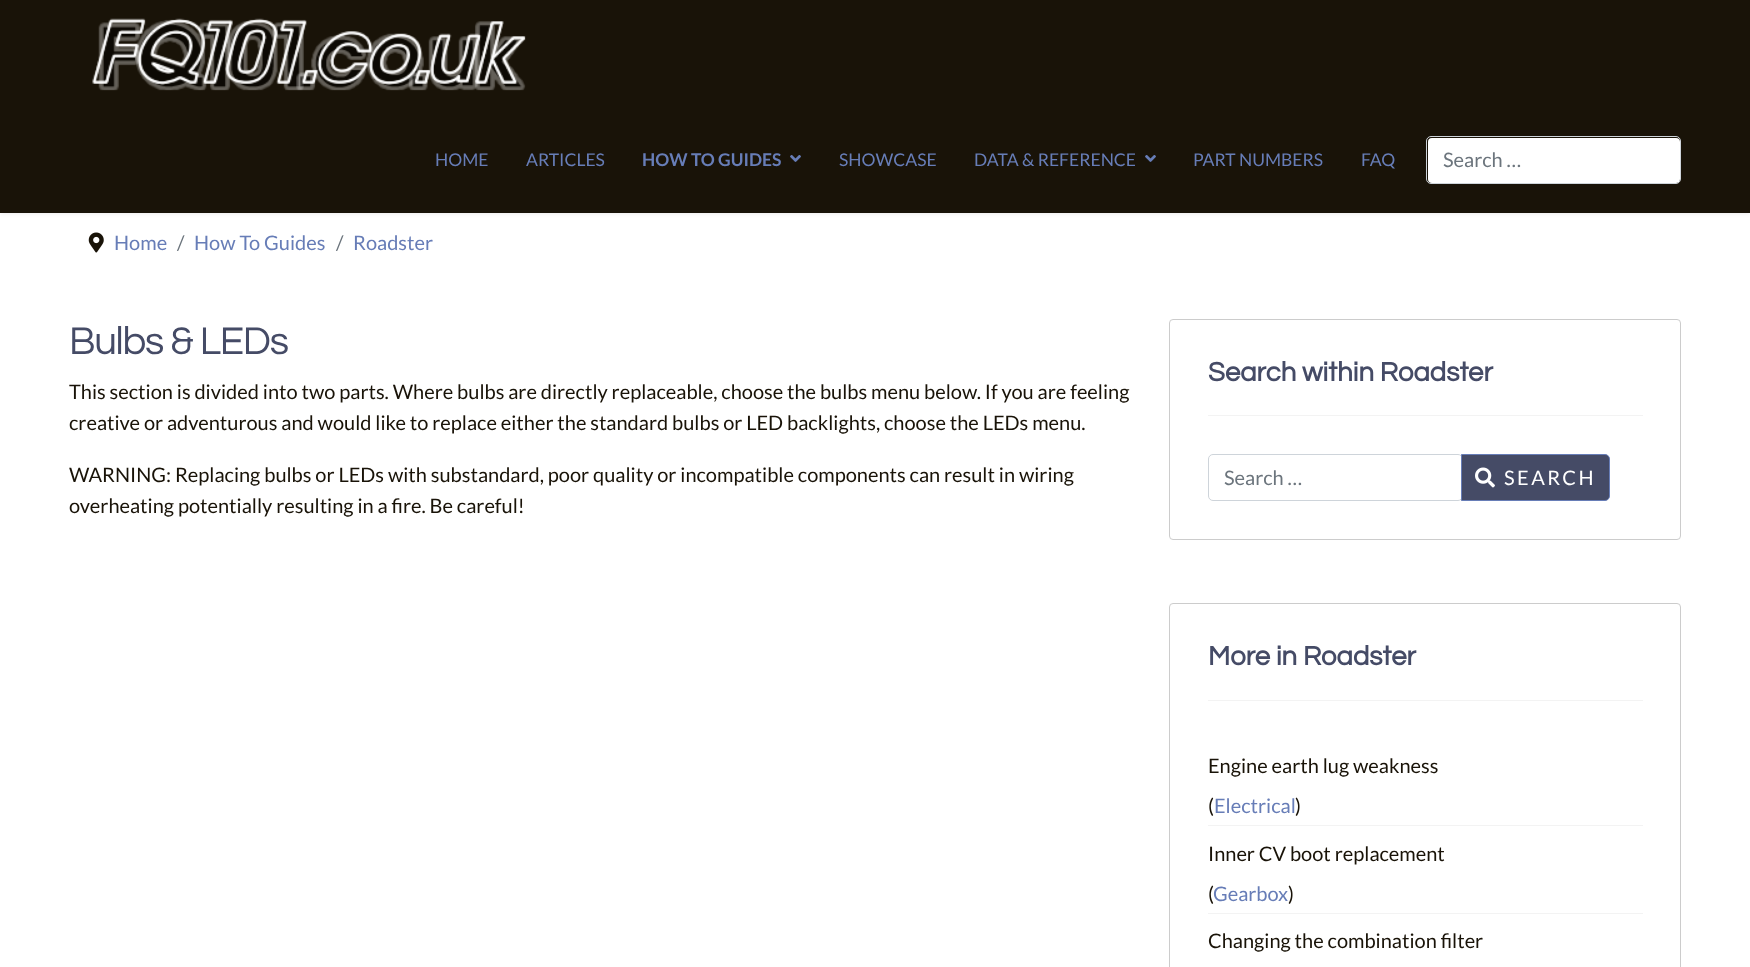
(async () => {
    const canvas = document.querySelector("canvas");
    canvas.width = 1750;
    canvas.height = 967;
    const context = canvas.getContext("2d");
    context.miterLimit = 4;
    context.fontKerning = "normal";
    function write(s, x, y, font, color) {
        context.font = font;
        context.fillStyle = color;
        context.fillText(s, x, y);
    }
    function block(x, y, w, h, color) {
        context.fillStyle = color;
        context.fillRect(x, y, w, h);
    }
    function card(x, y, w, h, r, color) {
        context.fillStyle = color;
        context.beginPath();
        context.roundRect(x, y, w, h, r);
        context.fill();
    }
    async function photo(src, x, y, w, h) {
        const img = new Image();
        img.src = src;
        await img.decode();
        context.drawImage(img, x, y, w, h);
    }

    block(0, 0, 1750, 967, "rgb(255, 255, 255)");
    context.fillStyle = "rgba(0, 0, 0, 0.1)";
    context.filter = "blur(2.5px)";
    context.beginPath();
    context.rect(0, 0, 1750, 213);
    context.fill();
    context.filter = "none";
    block(0, 0, 1750, 213, "rgb(25, 19, 8)");
    await photo("media/1.png", 92, 18, 434, 73);
    write("HOME", 435, 166, "17.5px Lato", "rgb(103, 125, 183)");
    write("ARTICLES", 526, 166, "17.5px Lato", "rgb(103, 125, 183)");
    write("HOW TO GUIDES", 642, 166, "bold 17.5px Lato", "rgb(103, 125, 183)");
    await photo("media/2.png", 790, 155, 11, 7);
    write("SHOWCASE", 839, 166, "17.5px Lato", "rgb(103, 125, 183)");
    write("DATA & REFERENCE", 974, 166, "17.5px Lato", "rgb(103, 125, 183)");
    await photo("media/2.png", 1145, 155, 11, 7);
    write("PART NUMBERS", 1193, 166, "17.5px Lato", "rgb(103, 125, 183)");
    write("FAQ", 1361, 166, "17.5px Lato", "rgb(103, 125, 183)");
    card(1428, 138, 252, 45, 4, "rgb(255, 255, 255)");
    context.beginPath();
    context.roundRect(1426.5, 136.5, 254, 47, 4.5);
    context.strokeStyle = "rgb(206, 212, 218)";
    context.stroke();
    write("Search …", 1443, 167, "20px Lato", "rgb(108, 117, 125)");
    await photo("media/3.png", 88, 232, 16, 21);
    write("Home", 114, 250, "20px Lato", "rgb(103, 125, 183)");
    write("/", 177, 250, "20px Lato", "rgb(108, 117, 125)");
    write("How To Guides", 194, 250, "20px Lato", "rgb(103, 125, 183)");
    write("/", 336, 250, "20px Lato", "rgb(108, 117, 125)");
    write("Roadster", 353, 250, "20px Lato", "rgb(103, 125, 183)");
    context.letterSpacing = "-1.25px";
    write("Bulbs & LEDs", 69, 354, "40px Questrial", "rgb(69, 75, 102)");
    context.letterSpacing = "0px";
    write("This section is divided into two parts. Where bulbs are directly replaceable, choose the bulbs menu below. If you are feeling", 69, 399, "20px Lato", "rgb(25, 19, 8)");
    write("creative or adventurous and would like to replace either the standard bulbs or LED backlights, choose the LEDs menu.", 69, 430, "20px Lato", "rgb(25, 19, 8)");
    write("WARNING: Replacing bulbs or LEDs with substandard, poor quality or incompatible components can result in wiring", 69, 482, "20px Lato", "rgb(25, 19, 8)");
    write("overheating potentially resulting in a fire. Be careful!", 69, 513, "20px Lato", "rgb(25, 19, 8)");
    context.beginPath();
    context.roundRect(1169.5, 319.5, 511, 220, 3.5);
    context.strokeStyle = "rgb(204, 204, 204)";
    context.stroke();
    block(1208, 415, 435, 1, "rgb(243, 243, 243)");
    write("Search within Roadster", 1208, 381, "bold 27.5px Questrial", "rgb(69, 75, 102)");
    context.beginPath();
    context.roundRect(1208.5, 454.5, 254, 46, 4.5);
    context.strokeStyle = "rgb(206, 212, 218)";
    context.stroke();
    write("Search …", 1224, 485, "20px Lato", "rgb(108, 117, 125)");
    context.fillStyle = "rgb(69, 75, 102)";
    context.beginPath();
    context.roundRect(1461.5, 454.5, 148, 46, [0, 4.5, 4.5, 0]);
    context.fill();
    context.strokeStyle = "rgb(103, 125, 183)";
    context.stroke();
    await photo("media/4.png", 1475, 467, 20, 21);
    context.letterSpacing = "2.5px";
    write("SEARCH", 1504, 485, "20px Lato", "rgb(255, 255, 255)");
    context.beginPath();
    context.roundRect(1169.5, 603.5, 511, 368, 3.5);
    context.strokeStyle = "rgb(204, 204, 204)";
    context.stroke();
    block(1208, 700, 435, 1, "rgb(243, 243, 243)");
    context.letterSpacing = "0px";
    write("More in Roadster", 1208, 665, "bold 27.5px Questrial", "rgb(69, 75, 102)");
    block(1208, 825, 435, 1, "rgb(243, 243, 243)");
    write("Engine earth lug weakness", 1208, 773, "20px Lato", "rgb(25, 19, 8)");
    write("(", 1208, 813, "20px Lato", "rgb(25, 19, 8)");
    write("Electrical", 1214, 813, "20px Lato", "rgb(103, 125, 183)");
    write(")", 1295, 813, "20px Lato", "rgb(25, 19, 8)");
    block(1208, 913, 435, 1, "rgb(243, 243, 243)");
    write("Inner CV boot replacement", 1208, 861, "20px Lato", "rgb(25, 19, 8)");
    write("(", 1208, 901, "20px Lato", "rgb(25, 19, 8)");
    write("Gearbox", 1213, 901, "20px Lato", "rgb(103, 125, 183)");
    write(")", 1288, 901, "20px Lato", "rgb(25, 19, 8)");
    write("Changing the combination filter", 1208, 948, "20px Lato", "rgb(25, 19, 8)");
})();
